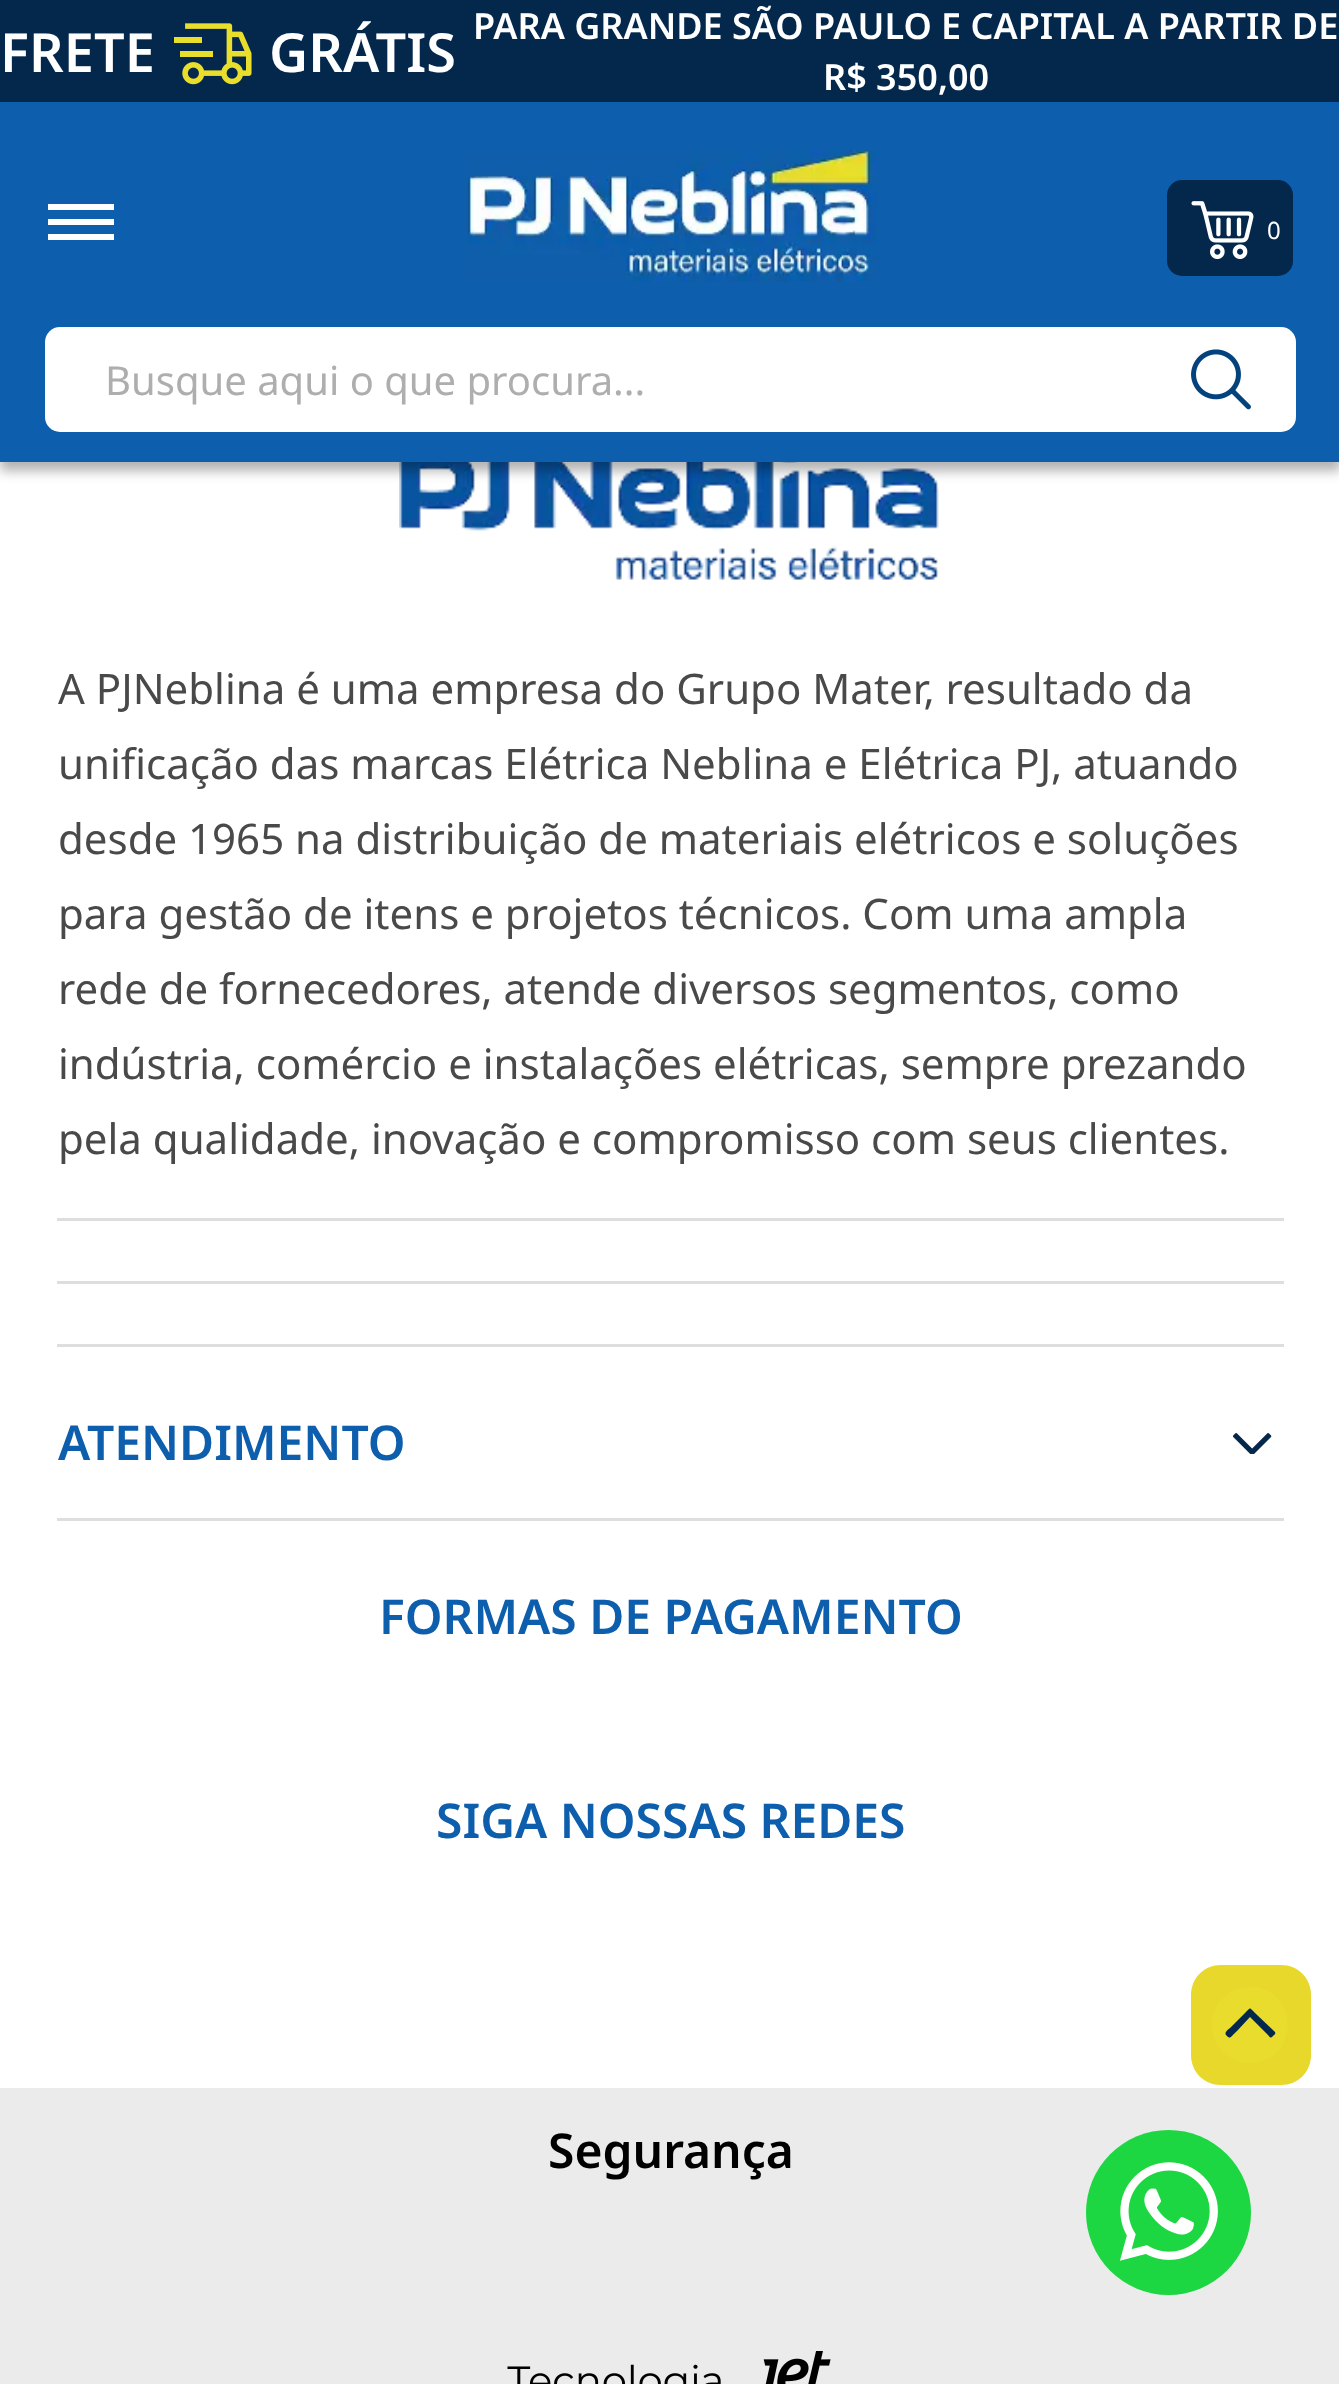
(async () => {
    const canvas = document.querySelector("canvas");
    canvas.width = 1339;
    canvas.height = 2384;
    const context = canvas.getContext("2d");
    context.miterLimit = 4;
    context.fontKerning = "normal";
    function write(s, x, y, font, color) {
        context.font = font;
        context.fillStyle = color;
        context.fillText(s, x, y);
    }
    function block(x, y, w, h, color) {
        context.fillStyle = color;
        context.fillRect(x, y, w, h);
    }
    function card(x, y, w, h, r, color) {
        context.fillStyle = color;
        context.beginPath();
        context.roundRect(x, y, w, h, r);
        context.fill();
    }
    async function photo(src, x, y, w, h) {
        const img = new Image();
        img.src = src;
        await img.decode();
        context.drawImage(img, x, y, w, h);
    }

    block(0, 0, 1339, 2384, "rgb(255, 255, 255)");
    await photo("media/5.png", 399, 462, 540, 118);
    context.fillStyle = "rgba(0, 0, 0, 0.3)";
    context.filter = "blur(6px)";
    context.beginPath();
    context.rect(0, 9, 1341, 462);
    context.fill();
    context.filter = "none";
    block(0, 102, 1339, 360, "rgb(13, 94, 172)");
    block(0, 0, 1339, 102, "rgb(4, 40, 76)");
    write("FRETE", 0, 72, "600 54px Noto Sans", "rgb(255, 255, 255)");
    await photo("media/1.png", 174, 23, 78, 62);
    write("GRÁTIS", 269, 72, "600 54px Noto Sans", "rgb(255, 255, 255)");
    write("PARA GRANDE SÃO PAULO E CAPITAL A PARTIR DE", 473, 39, "600 36px Noto Sans", "rgb(255, 255, 255)");
    write("R$ 350,00", 823, 90, "600 36px Noto Sans", "rgb(255, 255, 255)");
    block(48, 204, 66, 6, "rgb(255, 255, 255)");
    block(48, 219, 66, 6, "rgb(255, 255, 255)");
    block(48, 234, 66, 6, "rgb(255, 255, 255)");
    await photo("media/2.png", 466, 150, 412, 132);
    card(1167, 180, 126, 96, 15, "rgb(4, 40, 76)");
    await photo("media/3.png", 1191, 201, 63, 58);
    write("0", 1267, 239, "24px Noto Sans", "rgb(255, 255, 255)");
    card(45, 327, 1251, 105, 15, "rgb(255, 255, 255)");
    write("Busque aqui o que procura...", 105, 395, "40px Noto Sans", "rgb(174, 174, 174)");
    await photo("media/4.png", 1191, 349, 60, 61);
    block(57, 1218, 1227, 3, "rgb(222, 222, 222)");
    write("A PJNeblina é uma empresa do Grupo Mater, resultado da", 58, 704, "42px Noto Sans", "rgb(73, 73, 73)");
    write("unificação das marcas Elétrica Neblina e Elétrica PJ, atuando", 58, 779, "42px Noto Sans", "rgb(73, 73, 73)");
    write("desde 1965 na distribuição de materiais elétricos e soluções", 58, 854, "42px Noto Sans", "rgb(73, 73, 73)");
    write("para gestão de itens e projetos técnicos. Com uma ampla", 58, 929, "42px Noto Sans", "rgb(73, 73, 73)");
    write("rede de fornecedores, atende diversos segmentos, como", 58, 1004, "42px Noto Sans", "rgb(73, 73, 73)");
    write("indústria, comércio e instalações elétricas, sempre prezando", 58, 1079, "42px Noto Sans", "rgb(73, 73, 73)");
    write("pela qualidade, inovação e compromisso com seus clientes.", 58, 1154, "42px Noto Sans", "rgb(73, 73, 73)");
    block(57, 1281, 1227, 3, "rgb(222, 222, 222)");
    block(57, 1344, 1227, 3, "rgb(222, 222, 222)");
    block(57, 1518, 1227, 3, "rgb(222, 222, 222)");
    write("ATENDIMENTO", 58, 1460, "600 48px Noto Sans", "rgb(13, 94, 172)");
    await photo("media/6.png", 1233, 1433, 39, 21);
    write("FORMAS DE PAGAMENTO", 379, 1634, "600 48px Noto Sans", "rgb(13, 94, 172)");
    write("SIGA NOSSAS REDES", 436, 1838, "600 48px Noto Sans", "rgb(13, 94, 172)");
    context.fillStyle = "rgb(232, 216, 43)";
    context.beginPath();
    context.moveTo(1191, 2055);
    context.lineTo(1191, 1995);
    context.bezierCurveTo(1191, 1978, 1204, 1965, 1221, 1965);
    context.lineTo(1281, 1965);
    context.bezierCurveTo(1298, 1965, 1311, 1978, 1311, 1995);
    context.lineTo(1311, 2055);
    context.bezierCurveTo(1311, 2072, 1298, 2085, 1281, 2085);
    context.lineTo(1221, 2085);
    context.bezierCurveTo(1204, 2085, 1191, 2072, 1191, 2055);
    context.closePath();
    context.fill();
    context.fillStyle = "rgb(233, 220, 44)";
    context.beginPath();
    context.moveTo(1212, 2025);
    context.bezierCurveTo(1212, 1984, 1269, 1972, 1285, 2010);
    context.bezierCurveTo(1288, 2016, 1287, 2018, 1288, 2025);
    context.bezierCurveTo(1288, 2029, 1286, 2036, 1285, 2040);
    context.bezierCurveTo(1269, 2078, 1212, 2066, 1212, 2025);
    context.closePath();
    context.fill();
    context.fillStyle = "rgb(4, 40, 76)";
    context.beginPath();
    context.moveTo(1226, 2035);
    context.bezierCurveTo(1231, 2040, 1230, 2037, 1237, 2031);
    context.lineTo(1250, 2017);
    context.lineTo(1267, 2034);
    context.bezierCurveTo(1270, 2037, 1270, 2039, 1273, 2036);
    context.bezierCurveTo(1274, 2035, 1276, 2034, 1275, 2032);
    context.lineTo(1255, 2013);
    context.bezierCurveTo(1249, 2007, 1251, 2007, 1245, 2013);
    context.lineTo(1230, 2028);
    context.bezierCurveTo(1229, 2029, 1224, 2032, 1226, 2035);
    context.closePath();
    context.fill();
    block(0, 2088, 1339, 296, "rgb(235, 235, 235)");
    write("Segurança", 548, 2168, "600 48px Noto Sans", "rgb(0, 0, 0)");
    await photo("media/7.png", 507, 2351, 324, 33);
    context.fillStyle = "rgb(28, 215, 65)";
    context.beginPath();
    context.arc(1168.5, 2212.5, 82.5, 0, Math.PI * 2);
    context.fill();
    await photo("media/8.png", 1120, 2162, 98, 99);
})();
